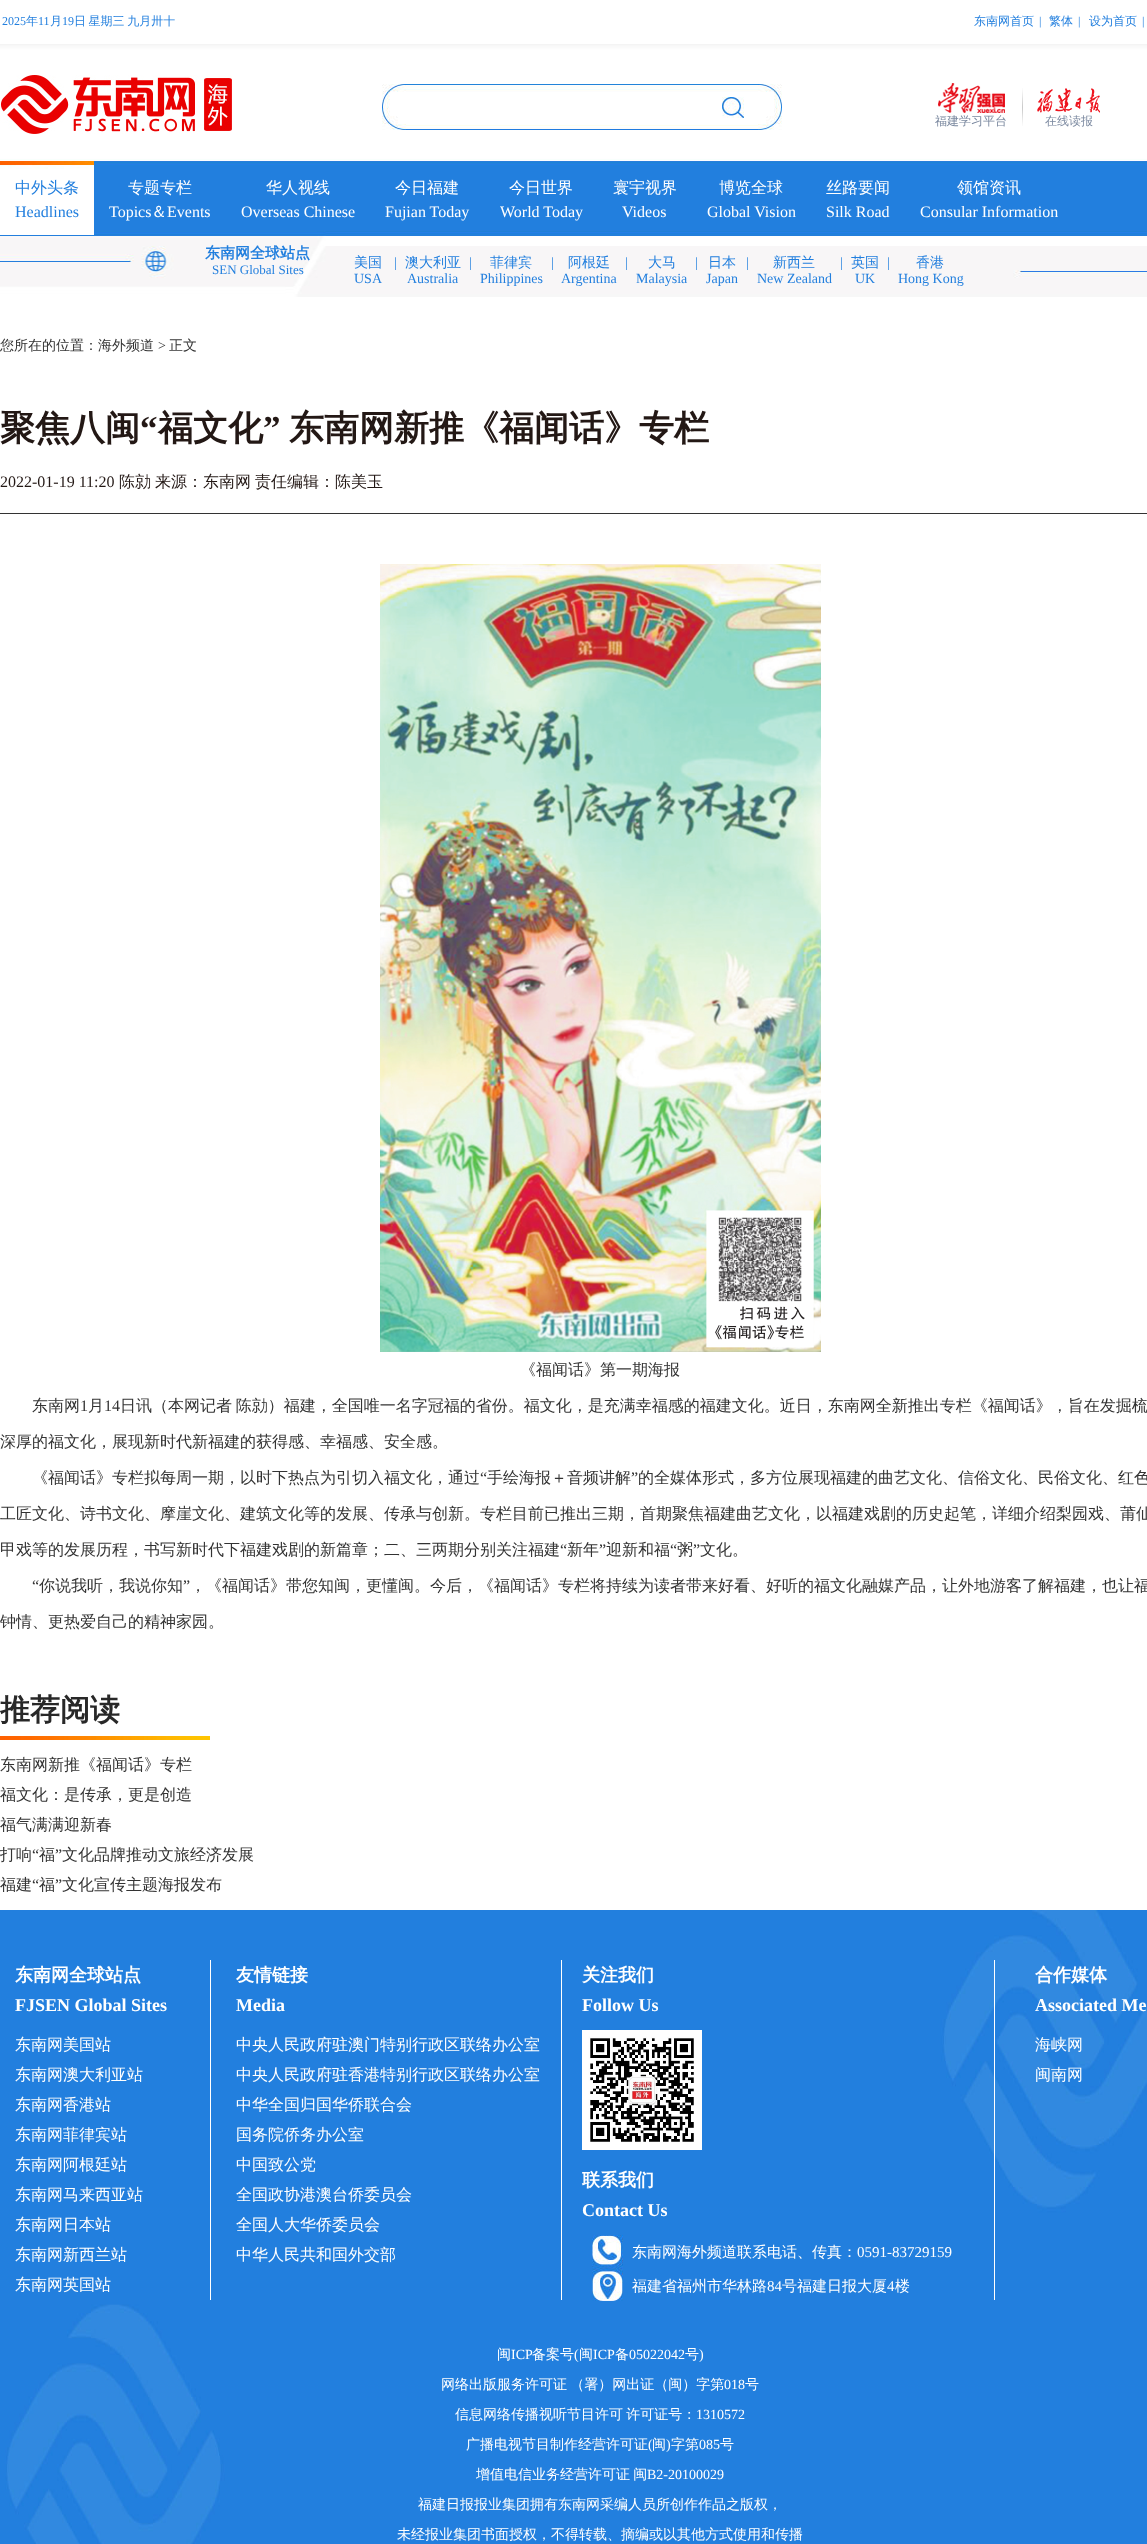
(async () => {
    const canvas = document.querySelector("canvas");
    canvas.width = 1147;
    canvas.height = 2544;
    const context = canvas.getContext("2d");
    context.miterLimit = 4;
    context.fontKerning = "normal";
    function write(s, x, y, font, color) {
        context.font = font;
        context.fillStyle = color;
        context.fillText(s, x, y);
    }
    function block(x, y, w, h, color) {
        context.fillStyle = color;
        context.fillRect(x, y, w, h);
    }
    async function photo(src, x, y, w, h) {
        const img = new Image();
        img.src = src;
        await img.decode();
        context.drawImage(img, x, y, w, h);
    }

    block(0, 0, 1147, 2544, "rgb(255, 255, 255)");
    await photo("media/1.png", 0, 44, 1147, 253);
    write("2025", 2, 25, "12px Liberation Serif", "rgb(34, 127, 222)");
    write("年", 26, 25, "500 12px WenQuanYi Zen Hei", "rgb(34, 127, 222)");
    write("11", 38, 25, "12px Liberation Serif", "rgb(34, 127, 222)");
    write("月", 50, 25, "500 12px WenQuanYi Zen Hei", "rgb(34, 127, 222)");
    write("19", 62, 25, "12px Liberation Serif", "rgb(34, 127, 222)");
    context.wordSpacing = "-1px";
    write("日 星期三 九月卅十", 74, 25, "500 12px WenQuanYi Zen Hei", "rgb(34, 127, 222)");
    context.wordSpacing = "0px";
    write("东南网首页", 974, 25, "500 12px WenQuanYi Zen Hei", "rgb(34, 127, 222)");
    write("|", 1039, 25, "12px Liberation Serif", "rgb(34, 127, 222)");
    write("繁体", 1049, 25, "500 12px WenQuanYi Zen Hei", "rgb(34, 127, 222)");
    write("|", 1078, 25, "12px Liberation Serif", "rgb(34, 127, 222)");
    write("设为首页", 1089, 25, "500 12px WenQuanYi Zen Hei", "rgb(34, 127, 222)");
    write("|", 1142, 25, "12px Liberation Serif", "rgb(34, 127, 222)");
    await photo("media/2.png", 0, 75, 232, 59);
    await photo("media/3.png", 382, 84, 400, 46);
    await photo("media/4.png", 722, 97, 22, 21);
    await photo("media/5.png", 938, 83, 67, 30);
    write("福建学习平台", 935, 125, "500 12px WenQuanYi Zen Hei", "rgb(122, 136, 159)");
    await photo("media/6.png", 1022, 88, 1, 38);
    await photo("media/7.png", 1037, 88, 63, 25);
    write("在线读报", 1045, 125, "500 12px WenQuanYi Zen Hei", "rgb(122, 136, 159)");
    await photo("media/8.png", 0, 161, 94, 74);
    write("中外头条", 15, 193, "500 16px WenQuanYi Zen Hei", "rgb(34, 127, 222)");
    write("Headlines", 15, 217, "16px Liberation Serif", "rgb(34, 127, 222)");
    write("专题专栏", 128, 193, "500 16px WenQuanYi Zen Hei", "rgb(255, 255, 255)");
    write("Topics", 109, 217, "16px Liberation Serif", "rgb(255, 255, 255)");
    write("＆", 151, 217, "500 16px WenQuanYi Zen Hei", "rgb(255, 255, 255)");
    write("Events", 167, 217, "16px Liberation Serif", "rgb(255, 255, 255)");
    write("华人视线", 266, 193, "500 16px WenQuanYi Zen Hei", "rgb(255, 255, 255)");
    write("Overseas Chinese", 241, 217, "16px Liberation Serif", "rgb(255, 255, 255)");
    write("今日福建", 395, 193, "500 16px WenQuanYi Zen Hei", "rgb(255, 255, 255)");
    write("Fujian Today", 385, 217, "16px Liberation Serif", "rgb(255, 255, 255)");
    write("今日世界", 509, 193, "500 16px WenQuanYi Zen Hei", "rgb(255, 255, 255)");
    write("World Today", 500, 217, "16px Liberation Serif", "rgb(255, 255, 255)");
    write("寰宇视界", 613, 193, "500 16px WenQuanYi Zen Hei", "rgb(255, 255, 255)");
    write("Videos", 622, 217, "16px Liberation Serif", "rgb(255, 255, 255)");
    write("博览全球", 719, 193, "500 16px WenQuanYi Zen Hei", "rgb(255, 255, 255)");
    write("Global Vision", 707, 217, "16px Liberation Serif", "rgb(255, 255, 255)");
    write("丝路要闻", 826, 193, "500 16px WenQuanYi Zen Hei", "rgb(255, 255, 255)");
    write("Silk Road", 826, 217, "16px Liberation Serif", "rgb(255, 255, 255)");
    write("领馆资讯", 957, 193, "500 16px WenQuanYi Zen Hei", "rgb(255, 255, 255)");
    write("Consular Information", 920, 217, "16px Liberation Serif", "rgb(255, 255, 255)");
    write("东南网全球站点", 205, 258, "bold 15px WenQuanYi Zen Hei", "rgb(34, 127, 222)");
    write("SEN Global Sites", 212, 274, "13px Liberation Serif", "rgb(34, 127, 222)");
    write("美国", 354, 267, "500 14px WenQuanYi Zen Hei", "rgb(34, 127, 222)");
    write("USA", 354, 283, "14px Liberation Serif", "rgb(34, 127, 222)");
    write("|", 394, 267, "14px Liberation Serif", "rgb(34, 127, 222)");
    write("澳大利亚", 405, 267, "500 14px WenQuanYi Zen Hei", "rgb(34, 127, 222)");
    write("Australia", 407, 283, "14px Liberation Serif", "rgb(34, 127, 222)");
    write("|", 469, 267, "14px Liberation Serif", "rgb(34, 127, 222)");
    write("菲律宾", 490, 267, "500 14px WenQuanYi Zen Hei", "rgb(34, 127, 222)");
    write("Philippines", 480, 283, "14px Liberation Serif", "rgb(34, 127, 222)");
    write("|", 551, 267, "14px Liberation Serif", "rgb(34, 127, 222)");
    write("阿根廷", 568, 267, "500 14px WenQuanYi Zen Hei", "rgb(34, 127, 222)");
    write("Argentina", 561, 283, "14px Liberation Serif", "rgb(34, 127, 222)");
    write("|", 625, 267, "14px Liberation Serif", "rgb(34, 127, 222)");
    write("大马", 648, 267, "500 14px WenQuanYi Zen Hei", "rgb(34, 127, 222)");
    write("Malaysia", 636, 283, "14px Liberation Serif", "rgb(34, 127, 222)");
    write("|", 695, 267, "14px Liberation Serif", "rgb(34, 127, 222)");
    write("日本", 708, 267, "500 14px WenQuanYi Zen Hei", "rgb(34, 127, 222)");
    write("Japan", 706, 283, "14px Liberation Serif", "rgb(34, 127, 222)");
    write("|", 746, 267, "14px Liberation Serif", "rgb(34, 127, 222)");
    write("新西兰", 773, 267, "500 14px WenQuanYi Zen Hei", "rgb(34, 127, 222)");
    write("New Zealand", 757, 283, "14px Liberation Serif", "rgb(34, 127, 222)");
    write("|", 840, 267, "14px Liberation Serif", "rgb(34, 127, 222)");
    write("英国", 851, 267, "500 14px WenQuanYi Zen Hei", "rgb(34, 127, 222)");
    write("UK", 855, 283, "14px Liberation Serif", "rgb(34, 127, 222)");
    write("|", 887, 267, "14px Liberation Serif", "rgb(34, 127, 222)");
    write("香港", 916, 267, "500 14px WenQuanYi Zen Hei", "rgb(34, 127, 222)");
    write("Hong Kong", 898, 283, "14px Liberation Serif", "rgb(34, 127, 222)");
    write("您所在的位置：海外频道", 0, 350, "500 14px WenQuanYi Zen Hei", "rgb(51, 51, 51)");
    write(">", 158, 350, "14px Liberation Serif", "rgb(51, 51, 51)");
    write("正文", 169, 350, "500 14px WenQuanYi Zen Hei", "rgb(51, 51, 51)");
    write("聚焦八闽", 0, 440, "bold 35px WenQuanYi Zen Hei", "rgb(35, 24, 21)");
    write("“", 140, 440, "bold 35px Liberation Serif", "rgb(35, 24, 21)");
    write("福文化", 158, 440, "bold 35px WenQuanYi Zen Hei", "rgb(35, 24, 21)");
    write("”", 263, 440, "bold 35px Liberation Serif", "rgb(35, 24, 21)");
    write("东南网新推《福闻话》专栏", 289, 440, "bold 35px WenQuanYi Zen Hei", "rgb(35, 24, 21)");
    write("2022-01-19 11:20", 0, 487, "16px Liberation Serif", "rgb(35, 24, 21)");
    write("陈勍", 119, 487, "500 16px WenQuanYi Zen Hei", "rgb(35, 24, 21)");
    write("来源：东南网", 155, 487, "500 16px WenQuanYi Zen Hei", "rgb(35, 24, 21)");
    write("责任编辑：陈美玉", 255, 487, "500 16px WenQuanYi Zen Hei", "rgb(35, 24, 21)");
    block(0, 513, 1147, 1, "rgb(51, 51, 51)");
    await photo("media/9.png", 380, 564, 441, 788);
    write("《福闻话》第一期海报", 520, 1375, "500 16px WenQuanYi Zen Hei", "rgb(51, 51, 51)");
    write("东南网", 32, 1411, "500 16px WenQuanYi Zen Hei", "rgb(51, 51, 51)");
    write("1", 80, 1411, "16px Liberation Serif", "rgb(51, 51, 51)");
    write("月", 88, 1411, "500 16px WenQuanYi Zen Hei", "rgb(51, 51, 51)");
    write("14", 104, 1411, "16px Liberation Serif", "rgb(51, 51, 51)");
    context.wordSpacing = "-1px";
    write("日讯（本网记者 陈勍）福建，全国唯一名字冠福的省份。福文化，是充满幸福感的福建文化。近日，东南网全新推出专栏《福闻话》，旨在发掘梳", 120, 1411, "500 16px WenQuanYi Zen Hei", "rgb(51, 51, 51)");
    context.wordSpacing = "0px";
    write("深厚的福文化，展现新时代新福建的获得感、幸福感、安全感。", 0, 1447, "500 16px WenQuanYi Zen Hei", "rgb(51, 51, 51)");
    write("《福闻话》专栏拟每周一期，以时下热点为引切入福文化，通过", 32, 1483, "500 16px WenQuanYi Zen Hei", "rgb(51, 51, 51)");
    write("“", 480, 1483, "16px Liberation Serif", "rgb(51, 51, 51)");
    write("手绘海报＋音频讲解", 487, 1483, "500 16px WenQuanYi Zen Hei", "rgb(51, 51, 51)");
    write("”", 631, 1483, "16px Liberation Serif", "rgb(51, 51, 51)");
    write("的全媒体形式，多方位展现福建的曲艺文化、信俗文化、民俗文化、红色", 638, 1483, "500 16px WenQuanYi Zen Hei", "rgb(51, 51, 51)");
    write("工匠文化、诗书文化、摩崖文化、建筑文化等的发展、传承与创新。专栏目前已推出三期，首期聚焦福建曲艺文化，以福建戏剧的历史起笔，详细介绍梨园戏、莆仙", 0, 1519, "500 16px WenQuanYi Zen Hei", "rgb(51, 51, 51)");
    write("甲戏等的发展历程，书写新时代下福建戏剧的新篇章；二、三两期分别关注福建", 0, 1555, "500 16px WenQuanYi Zen Hei", "rgb(51, 51, 51)");
    write("“", 560, 1555, "16px Liberation Serif", "rgb(51, 51, 51)");
    write("新年", 567, 1555, "500 16px WenQuanYi Zen Hei", "rgb(51, 51, 51)");
    write("”", 599, 1555, "16px Liberation Serif", "rgb(51, 51, 51)");
    write("迎新和福", 606, 1555, "500 16px WenQuanYi Zen Hei", "rgb(51, 51, 51)");
    write("“", 670, 1555, "16px Liberation Serif", "rgb(51, 51, 51)");
    write("粥", 677, 1555, "500 16px WenQuanYi Zen Hei", "rgb(51, 51, 51)");
    write("”", 693, 1555, "16px Liberation Serif", "rgb(51, 51, 51)");
    write("文化。", 700, 1555, "500 16px WenQuanYi Zen Hei", "rgb(51, 51, 51)");
    write("“", 32, 1591, "16px Liberation Serif", "rgb(51, 51, 51)");
    write("你说我听，我说你知", 39, 1591, "500 16px WenQuanYi Zen Hei", "rgb(51, 51, 51)");
    write("”", 183, 1591, "16px Liberation Serif", "rgb(51, 51, 51)");
    write("，《福闻话》带您知闽，更懂闽。今后，《福闻话》专栏将持续为读者带来好看、好听的福文化融媒产品，让外地游客了解福建，也让福", 190, 1591, "500 16px WenQuanYi Zen Hei", "rgb(51, 51, 51)");
    write("钟情、更热爱自己的精神家园。", 0, 1627, "500 16px WenQuanYi Zen Hei", "rgb(51, 51, 51)");
    await photo("media/10.png", 0, 1736, 210, 4);
    write("推荐阅读", 0, 1720, "bold 30px WenQuanYi Zen Hei", "rgb(40, 40, 40)");
    write("东南网新推《福闻话》专栏", 0, 1770, "500 16px WenQuanYi Zen Hei", "rgb(51, 51, 51)");
    write("福文化：是传承，更是创造", 0, 1800, "500 16px WenQuanYi Zen Hei", "rgb(51, 51, 51)");
    write("福气满满迎新春", 0, 1830, "500 16px WenQuanYi Zen Hei", "rgb(51, 51, 51)");
    write("打响", 0, 1860, "500 16px WenQuanYi Zen Hei", "rgb(51, 51, 51)");
    write("“", 32, 1860, "16px Liberation Serif", "rgb(51, 51, 51)");
    write("福", 39, 1860, "500 16px WenQuanYi Zen Hei", "rgb(51, 51, 51)");
    write("”", 55, 1860, "16px Liberation Serif", "rgb(51, 51, 51)");
    write("文化品牌推动文旅经济发展", 62, 1860, "500 16px WenQuanYi Zen Hei", "rgb(51, 51, 51)");
    write("福建", 0, 1890, "500 16px WenQuanYi Zen Hei", "rgb(51, 51, 51)");
    write("“", 32, 1890, "16px Liberation Serif", "rgb(51, 51, 51)");
    write("福", 39, 1890, "500 16px WenQuanYi Zen Hei", "rgb(51, 51, 51)");
    write("”", 55, 1890, "16px Liberation Serif", "rgb(51, 51, 51)");
    write("文化宣传主题海报发布", 62, 1890, "500 16px WenQuanYi Zen Hei", "rgb(51, 51, 51)");
    await photo("media/11.png", 0, 1910, 1147, 634);
    block(210, 1960, 1, 340, "rgb(255, 255, 255)");
    write("东南网全球站点", 15, 1981, "bold 18px WenQuanYi Zen Hei", "rgb(255, 255, 255)");
    write("FJSEN Global Sites", 15, 2011, "bold 18px Liberation Serif", "rgb(255, 255, 255)");
    write("东南网美国站", 15, 2050, "500 16px WenQuanYi Zen Hei", "rgb(255, 255, 255)");
    write("东南网澳大利亚站", 15, 2080, "500 16px WenQuanYi Zen Hei", "rgb(255, 255, 255)");
    write("东南网香港站", 15, 2110, "500 16px WenQuanYi Zen Hei", "rgb(255, 255, 255)");
    write("东南网菲律宾站", 15, 2140, "500 16px WenQuanYi Zen Hei", "rgb(255, 255, 255)");
    write("东南网阿根廷站", 15, 2170, "500 16px WenQuanYi Zen Hei", "rgb(255, 255, 255)");
    write("东南网马来西亚站", 15, 2200, "500 16px WenQuanYi Zen Hei", "rgb(255, 255, 255)");
    write("东南网日本站", 15, 2230, "500 16px WenQuanYi Zen Hei", "rgb(255, 255, 255)");
    write("东南网新西兰站", 15, 2260, "500 16px WenQuanYi Zen Hei", "rgb(255, 255, 255)");
    write("东南网英国站", 15, 2290, "500 16px WenQuanYi Zen Hei", "rgb(255, 255, 255)");
    block(561, 1960, 1, 340, "rgb(255, 255, 255)");
    write("友情链接", 236, 1981, "bold 18px WenQuanYi Zen Hei", "rgb(255, 255, 255)");
    write("Media", 236, 2011, "bold 18px Liberation Serif", "rgb(255, 255, 255)");
    write("中央人民政府驻澳门特别行政区联络办公室", 236, 2050, "500 16px WenQuanYi Zen Hei", "rgb(255, 255, 255)");
    write("中央人民政府驻香港特别行政区联络办公室", 236, 2080, "500 16px WenQuanYi Zen Hei", "rgb(255, 255, 255)");
    write("中华全国归国华侨联合会", 236, 2110, "500 16px WenQuanYi Zen Hei", "rgb(255, 255, 255)");
    write("国务院侨务办公室", 236, 2140, "500 16px WenQuanYi Zen Hei", "rgb(255, 255, 255)");
    write("中国致公党", 236, 2170, "500 16px WenQuanYi Zen Hei", "rgb(255, 255, 255)");
    write("全国政协港澳台侨委员会", 236, 2200, "500 16px WenQuanYi Zen Hei", "rgb(255, 255, 255)");
    write("全国人大华侨委员会", 236, 2230, "500 16px WenQuanYi Zen Hei", "rgb(255, 255, 255)");
    write("中华人民共和国外交部", 236, 2260, "500 16px WenQuanYi Zen Hei", "rgb(255, 255, 255)");
    write("关注我们", 582, 1981, "bold 18px WenQuanYi Zen Hei", "rgb(255, 255, 255)");
    write("Follow Us", 582, 2011, "bold 18px Liberation Serif", "rgb(255, 255, 255)");
    await photo("media/12.png", 582, 2030, 120, 120);
    write("联系我们", 582, 2186, "bold 18px WenQuanYi Zen Hei", "rgb(255, 255, 255)");
    write("Contact Us", 582, 2216, "bold 18px Liberation Serif", "rgb(255, 255, 255)");
    await photo("media/13.png", 592, 2235, 31, 66);
    write("东南网海外频道联系电话、传真：", 632, 2257, "500 15px WenQuanYi Zen Hei", "rgb(255, 255, 255)");
    write("0591-83729159", 857, 2257, "15px Liberation Serif", "rgb(255, 255, 255)");
    write("福建省福州市华林路", 632, 2291, "500 15px WenQuanYi Zen Hei", "rgb(255, 255, 255)");
    write("84", 767, 2291, "15px Liberation Serif", "rgb(255, 255, 255)");
    write("号福建日报大厦", 782, 2291, "500 15px WenQuanYi Zen Hei", "rgb(255, 255, 255)");
    write("4", 887, 2291, "15px Liberation Serif", "rgb(255, 255, 255)");
    write("楼", 895, 2291, "500 15px WenQuanYi Zen Hei", "rgb(255, 255, 255)");
    block(994, 1960, 1, 340, "rgb(255, 255, 255)");
    write("合作媒体", 1035, 1981, "bold 18px WenQuanYi Zen Hei", "rgb(255, 255, 255)");
    write("Associated Me", 1035, 2011, "bold 18px Liberation Serif", "rgb(255, 255, 255)");
    write("海峡网", 1035, 2050, "500 16px WenQuanYi Zen Hei", "rgb(255, 255, 255)");
    write("闽南网", 1035, 2080, "500 16px WenQuanYi Zen Hei", "rgb(255, 255, 255)");
    write("闽", 497, 2359, "500 14px WenQuanYi Zen Hei", "rgb(255, 255, 255)");
    write("ICP", 511, 2359, "14px Liberation Serif", "rgb(255, 255, 255)");
    write("备案号", 532, 2359, "500 14px WenQuanYi Zen Hei", "rgb(255, 255, 255)");
    write("(", 574, 2359, "14px Liberation Serif", "rgb(255, 255, 255)");
    write("闽", 579, 2359, "500 14px WenQuanYi Zen Hei", "rgb(255, 255, 255)");
    write("ICP", 593, 2359, "14px Liberation Serif", "rgb(255, 255, 255)");
    write("备", 615, 2359, "500 14px WenQuanYi Zen Hei", "rgb(255, 255, 255)");
    write("05022042", 629, 2359, "14px Liberation Serif", "rgb(255, 255, 255)");
    write("号", 685, 2359, "500 14px WenQuanYi Zen Hei", "rgb(255, 255, 255)");
    write(")", 699, 2359, "14px Liberation Serif", "rgb(255, 255, 255)");
    context.wordSpacing = "-1px";
    write("网络出版服务许可证 （署）网出证（闽）字第", 441, 2389, "500 14px WenQuanYi Zen Hei", "rgb(255, 255, 255)");
    context.wordSpacing = "0px";
    write("018", 724, 2389, "14px Liberation Serif", "rgb(255, 255, 255)");
    write("号", 745, 2389, "500 14px WenQuanYi Zen Hei", "rgb(255, 255, 255)");
    context.wordSpacing = "-1px";
    write("信息网络传播视听节目许可 许可证号：", 455, 2419, "500 14px WenQuanYi Zen Hei", "rgb(255, 255, 255)");
    context.wordSpacing = "0px";
    write("1310572", 696, 2419, "14px Liberation Serif", "rgb(255, 255, 255)");
    write("广播电视节目制作经营许可证", 466, 2449, "500 14px WenQuanYi Zen Hei", "rgb(255, 255, 255)");
    write("(", 648, 2449, "14px Liberation Serif", "rgb(255, 255, 255)");
    write("闽", 652, 2449, "500 14px WenQuanYi Zen Hei", "rgb(255, 255, 255)");
    write(")", 666, 2449, "14px Liberation Serif", "rgb(255, 255, 255)");
    write("字第", 671, 2449, "500 14px WenQuanYi Zen Hei", "rgb(255, 255, 255)");
    write("085", 699, 2449, "14px Liberation Serif", "rgb(255, 255, 255)");
    write("号", 720, 2449, "500 14px WenQuanYi Zen Hei", "rgb(255, 255, 255)");
    context.wordSpacing = "-1px";
    write("增值电信业务经营许可证 闽", 476, 2479, "500 14px WenQuanYi Zen Hei", "rgb(255, 255, 255)");
    context.wordSpacing = "0px";
    write("B2-20100029", 647, 2479, "14px Liberation Serif", "rgb(255, 255, 255)");
    write("福建日报报业集团拥有东南网采编人员所创作作品之版权，", 418, 2509, "500 14px WenQuanYi Zen Hei", "rgb(255, 255, 255)");
    write("未经报业集团书面授权，不得转载、摘编或以其他方式使用和传播", 397, 2539, "500 14px WenQuanYi Zen Hei", "rgb(255, 255, 255)");
})();
